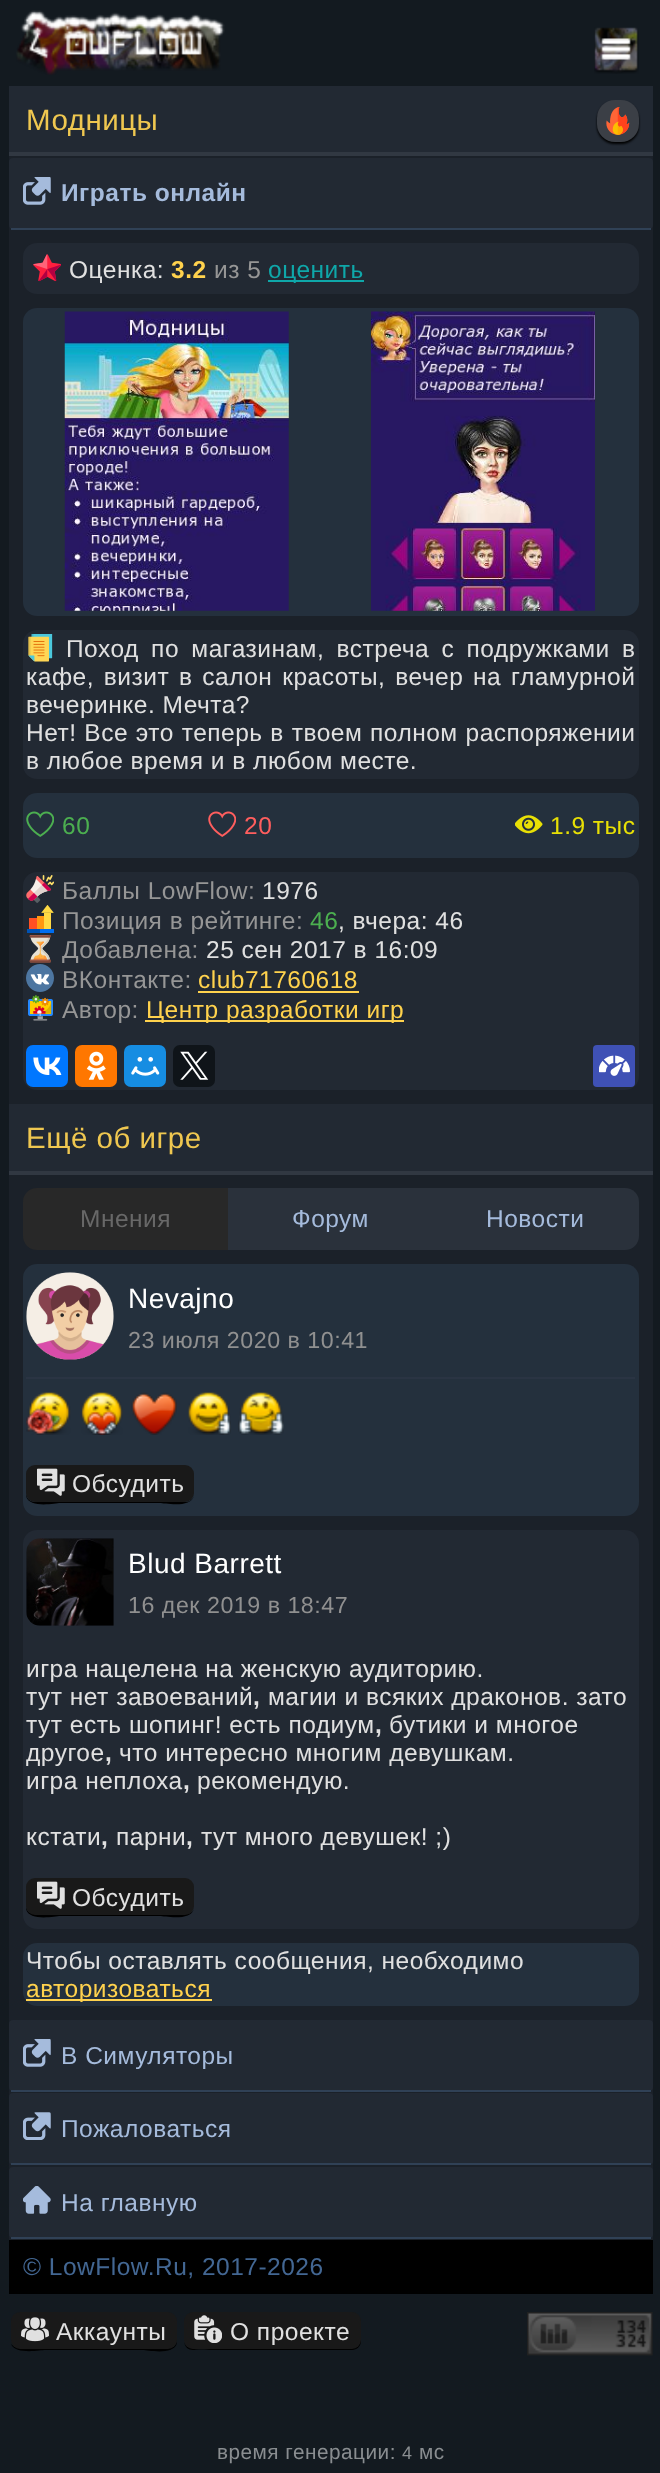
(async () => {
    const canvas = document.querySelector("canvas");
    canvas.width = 660;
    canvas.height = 2473;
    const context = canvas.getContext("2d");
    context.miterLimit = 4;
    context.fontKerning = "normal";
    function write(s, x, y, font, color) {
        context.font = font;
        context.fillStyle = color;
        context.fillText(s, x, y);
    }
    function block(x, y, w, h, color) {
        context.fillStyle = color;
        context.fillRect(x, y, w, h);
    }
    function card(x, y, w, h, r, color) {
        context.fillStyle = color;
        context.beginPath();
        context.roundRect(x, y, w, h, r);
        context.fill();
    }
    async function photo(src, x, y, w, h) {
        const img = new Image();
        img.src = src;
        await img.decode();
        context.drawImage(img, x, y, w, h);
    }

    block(0, 0, 660, 2473, "rgb(19, 26, 32)");
    await photo("media/1.png", 16, 10, 209, 65);
    await photo("media/2.png", 594, 27, 45, 47);
    block(9, 156, 644, 2084, "rgb(27, 33, 41)");
    block(9, 86, 644, 66, "rgb(34, 41, 51)");
    block(9, 152, 644, 4, "rgb(49, 56, 66)");
    context.letterSpacing = "0.5px";
    write("Модницы", 26, 130, "29.5px Liberation Sans", "rgb(239, 199, 80)");
    context.fillStyle = "rgb(0, 0, 0)";
    context.filter = "blur(1px)";
    context.beginPath();
    context.roundRect(597, 102, 42, 42, 18);
    context.fill();
    context.filter = "none";
    card(597, 100, 42, 42, 18, "rgb(59, 63, 70)");
    await photo("media/3.png", 606, 107, 24, 28);
    card(9, 158, 644, 71, 4, "rgb(34, 41, 51)");
    await photo("media/4.png", 23, 177, 28, 28);
    block(11, 228, 640, 2, "rgb(48, 65, 86)");
    write("Играть онлайн", 61, 201, "bold 24.5px Liberation Sans", "rgb(165, 187, 220)");
    card(23, 243, 616, 51, 14, "rgb(34, 41, 51)");
    await photo("media/5.png", 33, 254, 28, 28);
    write("Оценка:", 69, 278, "24.5px Liberation Sans", "rgb(224, 224, 224)");
    write("3.2", 171, 278, "bold 24.5px Liberation Sans", "rgb(255, 210, 77)");
    write("из 5", 214, 278, "24.5px Liberation Sans", "rgb(150, 150, 150)");
    block(268, 280, 96, 2, "rgb(15, 167, 169)");
    write("оценить", 268, 278, "24.5px Liberation Sans", "rgb(15, 167, 169)");
    card(23, 308, 616, 308, 14, "rgb(36, 48, 61)");
    await photo("media/6.png", 64, 311, 225, 300);
    await photo("media/7.png", 371, 311, 224, 300);
    card(23, 630, 616, 149, 14, "rgb(34, 41, 51)");
    await photo("media/8.png", 28, 634, 25, 28);
    context.wordSpacing = "5px";
    write("Поход по магазинам, встреча с подружками в", 66, 657, "24.5px Liberation Sans", "rgb(224, 224, 224)");
    context.wordSpacing = "2.5px";
    write("кафе, визит в салон красоты, вечер на гламурной", 26, 685, "24.5px Liberation Sans", "rgb(224, 224, 224)");
    context.wordSpacing = "0px";
    write("вечеринке. Мечта?", 26, 713, "24.5px Liberation Sans", "rgb(224, 224, 224)");
    context.wordSpacing = "0.5px";
    write("Нет! Все это теперь в твоем полном распоряжении", 26, 741, "24.5px Liberation Sans", "rgb(224, 224, 224)");
    context.wordSpacing = "0px";
    write("в любое время и в любом месте.", 26, 769, "24.5px Liberation Sans", "rgb(224, 224, 224)");
    card(23, 793, 616, 65, 14, "rgb(36, 48, 61)");
    await photo("media/9.png", 26, 811, 28, 26);
    write("60", 62, 834, "24.5px Liberation Sans", "rgb(76, 175, 80)");
    await photo("media/10.png", 208, 811, 28, 26);
    write("20", 244, 834, "24.5px Liberation Sans", "rgb(255, 94, 94)");
    await photo("media/11.png", 515, 815, 28, 19);
    write("1.9 тыс", 550, 834, "24.5px Liberation Sans", "rgb(232, 224, 5)");
    card(23, 872, 616, 218, 14, "rgb(34, 41, 51)");
    await photo("media/12.png", 26, 875, 28, 28);
    write("Баллы LowFlow:", 62, 899, "24.5px Liberation Sans", "rgb(150, 150, 150)");
    write("1976", 262, 899, "24.5px Liberation Sans", "rgb(224, 224, 224)");
    await photo("media/13.png", 27, 905, 27, 28);
    write("Позиция в рейтинге:", 62, 929, "24.5px Liberation Sans", "rgb(150, 150, 150)");
    write("46", 310, 929, "24.5px Liberation Sans", "rgb(76, 175, 80)");
    write(", вчера: 46", 338, 929, "24.5px Liberation Sans", "rgb(224, 224, 224)");
    await photo("media/14.png", 29, 935, 22, 28);
    write("Добавлена:", 62, 958, "24.5px Liberation Sans", "rgb(150, 150, 150)");
    write("25 сен 2017 в 16:09", 206, 958, "24.5px Liberation Sans", "rgb(224, 224, 224)");
    await photo("media/15.png", 26, 964, 28, 28);
    write("ВКонтакте:", 62, 988, "24.5px Liberation Sans", "rgb(150, 150, 150)");
    write("club71760618", 198, 988, "24.5px Liberation Sans", "rgb(255, 210, 77)");
    block(198, 991, 161, 2, "rgb(255, 210, 77)");
    await photo("media/16.png", 28, 995, 25, 26);
    write("Автор:", 62, 1018, "24.5px Liberation Sans", "rgb(150, 150, 150)");
    block(145, 1020, 259, 2, "rgb(255, 210, 77)");
    write("Центр разработки игр", 146, 1018, "24.5px Liberation Sans", "rgb(255, 210, 77)");
    card(26, 1045, 42, 42, 7, "rgb(0, 119, 255)");
    await photo("media/17.png", 33, 1057, 29, 18);
    card(75, 1045, 42, 42, 7, "rgb(255, 119, 0)");
    await photo("media/18.png", 86, 1051, 20, 29);
    card(124, 1045, 42, 42, 7, "rgb(22, 141, 226)");
    await photo("media/19.png", 131, 1057, 29, 19);
    card(173, 1045, 42, 42, 7, "rgb(15, 20, 25)");
    await photo("media/20.png", 180, 1051, 29, 29);
    card(593, 1045, 42, 42, 4, "rgb(63, 81, 181)");
    await photo("media/21.png", 599, 1055, 31, 21);
    block(9, 1104, 644, 67, "rgb(34, 41, 51)");
    block(9, 1171, 644, 4, "rgb(49, 56, 66)");
    write("Ещё об игре", 26, 1148, "29.5px Liberation Sans", "rgb(239, 199, 80)");
    context.fillStyle = "rgb(40, 40, 40)";
    context.beginPath();
    context.roundRect(23, 1188, 205, 62, [14, 0, 0, 14]);
    context.fill();
    write("Мнения", 80, 1227, "24.5px Liberation Sans", "rgb(104, 104, 104)");
    block(228, 1188, 204, 62, "rgb(42, 49, 59)");
    write("Форум", 292, 1227, "24.5px Liberation Sans", "rgb(165, 187, 220)");
    context.fillStyle = "rgb(42, 49, 59)";
    context.beginPath();
    context.roundRect(432, 1188, 207, 62, [0, 14, 14, 0]);
    context.fill();
    write("Новости", 486, 1227, "24.5px Liberation Sans", "rgb(165, 187, 220)");
    card(23, 1264, 616, 252, 14, "rgb(36, 48, 61)");
    await photo("media/22.png", 26, 1272, 88, 88);
    write("Nevajno", 128, 1308, "28px Liberation Sans", "rgb(255, 255, 255)");
    write("23 июля 2020 в 10:41", 128, 1348, "23.25px Liberation Sans", "rgb(144, 144, 144)");
    block(26, 1377, 609, 2, "rgb(42, 52, 67)");
    await photo("media/23.png", 26, 1392, 45, 43);
    await photo("media/24.png", 81, 1392, 42, 43);
    await photo("media/25.png", 131, 1392, 46, 43);
    await photo("media/26.png", 188, 1392, 43, 43);
    await photo("media/27.png", 238, 1392, 46, 43);
    context.fillStyle = "rgb(0, 0, 0)";
    context.beginPath();
    context.moveTo(26, 1474);
    context.lineTo(26, 1496);
    context.bezierCurveTo(29, 1509, 56, 1503, 60, 1503);
    context.lineTo(160, 1503);
    context.bezierCurveTo(164, 1503, 192, 1509, 194, 1495);
    context.bezierCurveTo(193, 1499, 190, 1502, 186, 1502);
    context.lineTo(35, 1502);
    context.bezierCurveTo(30, 1502, 26, 1498, 26, 1493);
    context.closePath();
    context.fill();
    card(26, 1465, 168, 37, 9, "rgb(25, 25, 25)");
    await photo("media/28.png", 37, 1468, 28, 28);
    write("Обсудить", 72, 1492, "24.5px Liberation Sans", "rgb(224, 224, 224)");
    card(23, 1530, 616, 399, 14, "rgb(34, 41, 51)");
    await photo("media/29.png", 26, 1538, 88, 88);
    write("Blud Barrett", 128, 1573, "28px Liberation Sans", "rgb(255, 255, 255)");
    write("16 дек 2019 в 18:47", 128, 1613, "23.25px Liberation Sans", "rgb(144, 144, 144)");
    write("игра нацелена на женскую аудиторию.", 26, 1677, "24.5px Liberation Sans", "rgb(224, 224, 224)");
    write("тут нет завоеваний", 26, 1705, "24.5px Liberation Sans", "rgb(224, 224, 224)");
    write(",", 253, 1705, "bold 24.5px Liberation Sans", "rgb(224, 224, 224)");
    write("магии и всяких драконов. зато", 268, 1705, "24.5px Liberation Sans", "rgb(224, 224, 224)");
    write("тут есть шопинг! есть подиум", 26, 1733, "24.5px Liberation Sans", "rgb(224, 224, 224)");
    write(",", 375, 1733, "bold 24.5px Liberation Sans", "rgb(224, 224, 224)");
    write("бутики и многое", 389, 1733, "24.5px Liberation Sans", "rgb(224, 224, 224)");
    write("другое", 26, 1761, "24.5px Liberation Sans", "rgb(224, 224, 224)");
    write(",", 105, 1761, "bold 24.5px Liberation Sans", "rgb(224, 224, 224)");
    write("что интересно многим девушкам.", 119, 1761, "24.5px Liberation Sans", "rgb(224, 224, 224)");
    write("игра неплоха", 26, 1789, "24.5px Liberation Sans", "rgb(224, 224, 224)");
    write(",", 183, 1789, "bold 24.5px Liberation Sans", "rgb(224, 224, 224)");
    write("рекомендую.", 197, 1789, "24.5px Liberation Sans", "rgb(224, 224, 224)");
    write("кстати", 26, 1845, "24.5px Liberation Sans", "rgb(224, 224, 224)");
    write(",", 101, 1845, "bold 24.5px Liberation Sans", "rgb(224, 224, 224)");
    write("парни", 116, 1845, "24.5px Liberation Sans", "rgb(224, 224, 224)");
    write(",", 186, 1845, "bold 24.5px Liberation Sans", "rgb(224, 224, 224)");
    write("тут много девушек! ;)", 201, 1845, "24.5px Liberation Sans", "rgb(224, 224, 224)");
    context.fillStyle = "rgb(0, 0, 0)";
    context.beginPath();
    context.moveTo(26, 1887);
    context.lineTo(26, 1909);
    context.bezierCurveTo(29, 1922, 56, 1916, 60, 1916);
    context.lineTo(160, 1916);
    context.bezierCurveTo(164, 1916, 192, 1922, 194, 1908);
    context.bezierCurveTo(193, 1912, 190, 1914, 186, 1914);
    context.lineTo(35, 1914);
    context.bezierCurveTo(30, 1914, 26, 1911, 26, 1906);
    context.closePath();
    context.fill();
    card(26, 1878, 168, 37, 9, "rgb(25, 25, 25)");
    await photo("media/28.png", 37, 1881, 28, 28);
    write("Обсудить", 72, 1906, "24.5px Liberation Sans", "rgb(224, 224, 224)");
    card(23, 1943, 616, 63, 14, "rgb(36, 48, 61)");
    write("Чтобы оставлять сообщения, необходимо", 26, 1969, "24.5px Liberation Sans", "rgb(224, 224, 224)");
    block(26, 1999, 186, 2, "rgb(255, 210, 77)");
    write("авторизоваться", 26, 1997, "24.5px Liberation Sans", "rgb(255, 210, 77)");
    card(9, 2020, 644, 71, 4, "rgb(34, 41, 51)");
    await photo("media/4.png", 23, 2039, 28, 28);
    block(11, 2090, 640, 2, "rgb(48, 65, 86)");
    write("В Симуляторы", 61, 2064, "24.5px Liberation Sans", "rgb(165, 187, 220)");
    card(9, 2093, 644, 72, 4, "rgb(34, 41, 51)");
    await photo("media/30.png", 23, 2112, 28, 28);
    block(11, 2163, 640, 2, "rgb(48, 65, 86)");
    write("Пожаловаться", 61, 2137, "24.5px Liberation Sans", "rgb(165, 187, 220)");
    card(9, 2167, 644, 71, 4, "rgb(34, 41, 51)");
    await photo("media/31.png", 23, 2186, 28, 28);
    block(11, 2237, 640, 2, "rgb(48, 65, 86)");
    write("На главную", 61, 2211, "24.5px Liberation Sans", "rgb(165, 187, 220)");
    block(9, 2240, 644, 54, "rgb(0, 0, 0)");
    write("© LowFlow.Ru, 2017-2026", 23, 2275, "24.5px Liberation Sans", "rgb(67, 103, 147)");
    context.fillStyle = "rgb(0, 0, 0)";
    context.beginPath();
    context.moveTo(11, 2344);
    context.bezierCurveTo(15, 2355, 41, 2350, 45, 2350);
    context.lineTo(143, 2350);
    context.bezierCurveTo(147, 2350, 174, 2356, 177, 2343);
    context.lineTo(177, 2321);
    context.lineTo(177, 2340);
    context.bezierCurveTo(177, 2345, 173, 2348, 168, 2348);
    context.lineTo(19, 2348);
    context.bezierCurveTo(16, 2348, 13, 2346, 11, 2344);
    context.closePath();
    context.fill();
    card(11, 2312, 166, 37, 9, "rgb(25, 25, 25)");
    await photo("media/32.png", 21, 2317, 28, 25);
    write("Аккаунты", 56, 2340, "24.5px Liberation Sans", "rgb(224, 224, 224)");
    context.fillStyle = "rgb(0, 0, 0)";
    context.beginPath();
    context.moveTo(184, 2342);
    context.bezierCurveTo(185, 2347, 188, 2350, 193, 2350);
    context.lineTo(352, 2350);
    context.bezierCurveTo(357, 2350, 361, 2346, 361, 2341);
    context.lineTo(361, 2323);
    context.lineTo(360, 2320);
    context.lineTo(360, 2333);
    context.bezierCurveTo(360, 2340, 361, 2348, 352, 2348);
    context.lineTo(219, 2348);
    context.bezierCurveTo(216, 2348, 187, 2354, 184, 2342);
    context.closePath();
    context.fill();
    card(184, 2312, 177, 37, 9, "rgb(25, 25, 25)");
    await photo("media/33.png", 194, 2315, 28, 28);
    write("О проекте", 230, 2340, "24.5px Liberation Sans", "rgb(224, 224, 224)");
    await photo("media/34.png", 527, 2312, 126, 44);
    write("время генерации:", 217, 2459, "20.75px Liberation Sans", "rgb(137, 141, 144)");
    write("4", 402, 2459, "18px Liberation Sans", "rgb(137, 141, 144)");
    write("мс", 419, 2459, "20.75px Liberation Sans", "rgb(137, 141, 144)");
})();
